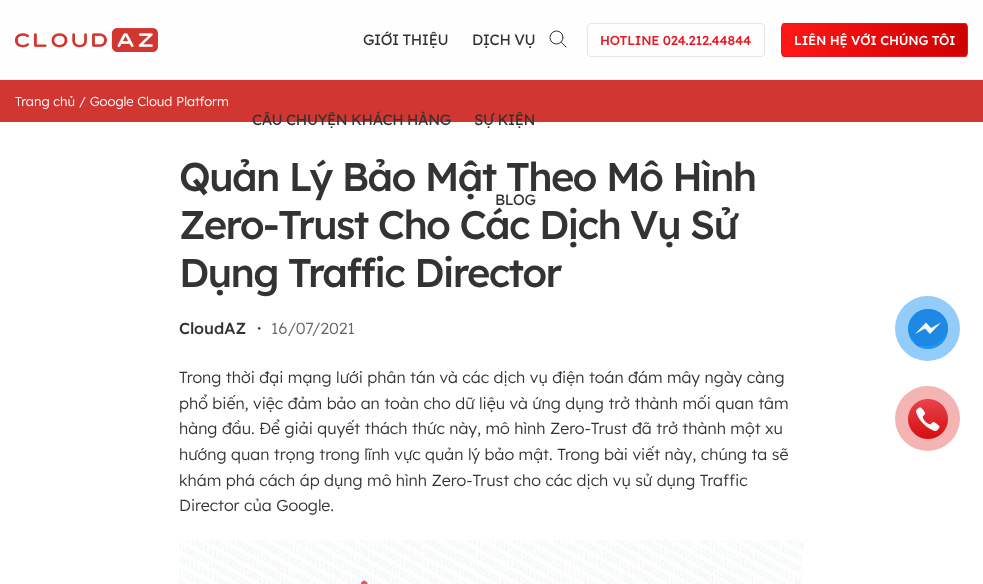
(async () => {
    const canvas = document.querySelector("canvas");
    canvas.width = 983;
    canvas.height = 584;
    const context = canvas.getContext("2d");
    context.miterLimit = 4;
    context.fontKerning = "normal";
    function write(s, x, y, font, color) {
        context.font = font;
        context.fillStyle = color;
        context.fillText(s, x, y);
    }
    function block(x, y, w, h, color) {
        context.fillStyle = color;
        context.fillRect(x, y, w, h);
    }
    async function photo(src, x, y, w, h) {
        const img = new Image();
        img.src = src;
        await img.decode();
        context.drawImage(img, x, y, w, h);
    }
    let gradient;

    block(0, 0, 983, 584, "rgb(209, 54, 48)");
    block(0, 0, 983, 79, "rgb(254, 254, 254)");
    block(0, 79, 983, 1, "rgb(247, 247, 247)");
    await photo("media/1.png", 15, 28, 143, 24);
    context.letterSpacing = "-0.4px";
    write("GIỚI THIỆU", 363, 45, "15px Lexend Deca", "rgb(51, 51, 51)");
    write("DỊCH VỤ", 472, 45, "15px Lexend Deca", "rgb(51, 51, 51)");
    block(0, 122, 983, 462, "rgb(255, 255, 255)");
    write("CÂU CHUYỆN KHÁCH HÀNG", 252, 125, "15px Lexend Deca", "rgb(51, 51, 51)");
    write("SỰ KIỆN", 474, 125, "15px Lexend Deca", "rgb(51, 51, 51)");
    context.letterSpacing = "-1.7px";
    write("Quản Lý Bảo Mật Theo Mô Hình", 179, 191, "500 40px Lexend Deca", "rgb(51, 51, 51)");
    context.letterSpacing = "-0.4px";
    write("BLOG", 495, 205, "15px Lexend Deca", "rgb(51, 51, 51)");
    context.beginPath();
    context.moveTo(561.5, 42.5);
    context.lineTo(566, 47);
    context.strokeStyle = "rgb(51, 51, 51)";
    context.lineCap = "round";
    context.lineJoin = "round";
    context.stroke();
    context.beginPath();
    context.arc(556.5, 37.5, 6.5, 0, Math.PI * 2);
    context.stroke();
    context.beginPath();
    context.roundRect(587.5, 23.5, 177, 33, 3.5);
    context.strokeStyle = "rgb(230, 230, 230)";
    context.lineJoin = "miter";
    context.stroke();
    context.letterSpacing = "-0.2px";
    write("HOTLINE 024.212.44844", 600, 45, "500 13px Lexend Deca", "rgb(229, 27, 35)");
    context.save();
    context.beginPath();
    context.roundRect(781, 23, 187, 34, 4);
    context.clip();
    gradient = context.createLinearGradient(782, 40, 967, 40);
    gradient.addColorStop(0, "rgb(255, 23, 23)");
    gradient.addColorStop(1, "rgb(206, 0, 0)");
    context.fillStyle = gradient;
    context.fillRect(782, 23, 185, 34);
    context.restore();
    context.beginPath();
    context.roundRect(781.5, 23.5, 186, 33, 3.5);
    context.strokeStyle = "rgb(229, 27, 35)";
    context.stroke();
    write("LIÊN HỆ VỚI CHÚNG TÔI", 794, 45, "500 13px Lexend Deca", "rgb(255, 255, 255)");
    context.letterSpacing = "0px";
    write("Trang chủ / Google Cloud Platform", 15, 106, "300 13px Lexend Deca", "rgb(255, 255, 255)");
    context.letterSpacing = "-1.7px";
    write("Zero-Trust Cho Các Dịch Vụ Sử", 179, 239, "500 40px Lexend Deca", "rgb(51, 51, 51)");
    write("Dụng Traffic Director", 179, 287, "500 40px Lexend Deca", "rgb(51, 51, 51)");
    context.letterSpacing = "0px";
    write("CloudAZ", 179, 334, "500 16px Lexend Deca", "rgb(51, 51, 51)");
    write("・", 251, 334, "500 16px WenQuanYi Zen Hei", "rgb(51, 51, 51)");
    write("16/07/2021", 271, 334, "300 16px Lexend Deca", "rgb(102, 102, 102)");
    write("Trong thời đại mạng lưới phân tán và các dịch vụ điện toán đám mây ngày càng", 179, 383, "300 16px Lexend Deca", "rgb(51, 51, 51)");
    write("phổ biến, việc đảm bảo an toàn cho dữ liệu và ứng dụng trở thành mối quan tâm", 179, 409, "300 16px Lexend Deca", "rgb(51, 51, 51)");
    write("hàng đầu. Để giải quyết thách thức này, mô hình Zero-Trust đã trở thành một xu", 179, 434, "300 16px Lexend Deca", "rgb(51, 51, 51)");
    write("hướng quan trọng trong lĩnh vực quản lý bảo mật. Trong bài viết này, chúng ta sẽ", 179, 460, "300 16px Lexend Deca", "rgb(51, 51, 51)");
    write("khám phá cách áp dụng mô hình Zero-Trust cho các dịch vụ sử dụng Traffic", 179, 486, "300 16px Lexend Deca", "rgb(51, 51, 51)");
    write("Director của Google.", 179, 511, "300 16px Lexend Deca", "rgb(51, 51, 51)");
    await photo("media/2.png", 179, 540, 625, 44);
    context.fillStyle = "rgb(147, 204, 249)";
    context.beginPath();
    context.arc(927.5, 328.5, 32.5, 0, Math.PI * 2);
    context.fill();
    context.fillStyle = "rgb(33, 150, 243)";
    context.beginPath();
    context.arc(928, 329, 20, 0, Math.PI * 2);
    context.fill();
    context.fillStyle = "rgb(30, 136, 229)";
    context.beginPath();
    context.moveTo(928, 309);
    context.bezierCurveTo(947, 309, 956, 332, 939, 342);
    context.bezierCurveTo(934, 346, 928, 347, 922, 345);
    context.lineTo(919, 347);
    context.lineTo(915, 344);
    context.lineTo(915, 342);
    context.bezierCurveTo(901, 331, 911, 309, 928, 309);
    context.closePath();
    context.fill();
    context.fillStyle = "rgb(250, 250, 250)";
    context.beginPath();
    context.moveTo(930, 334);
    context.lineTo(925, 328.5);
    context.lineTo(915, 334);
    context.lineTo(926, 322.5);
    context.lineTo(931, 328);
    context.lineTo(941, 322.5);
    context.closePath();
    context.fill();
    context.fillStyle = "rgb(245, 180, 180)";
    context.beginPath();
    context.arc(927.5, 418.5, 32.5, 0, Math.PI * 2);
    context.fill();
    await photo("media/3.png", 908, 399, 40, 40);
})();
